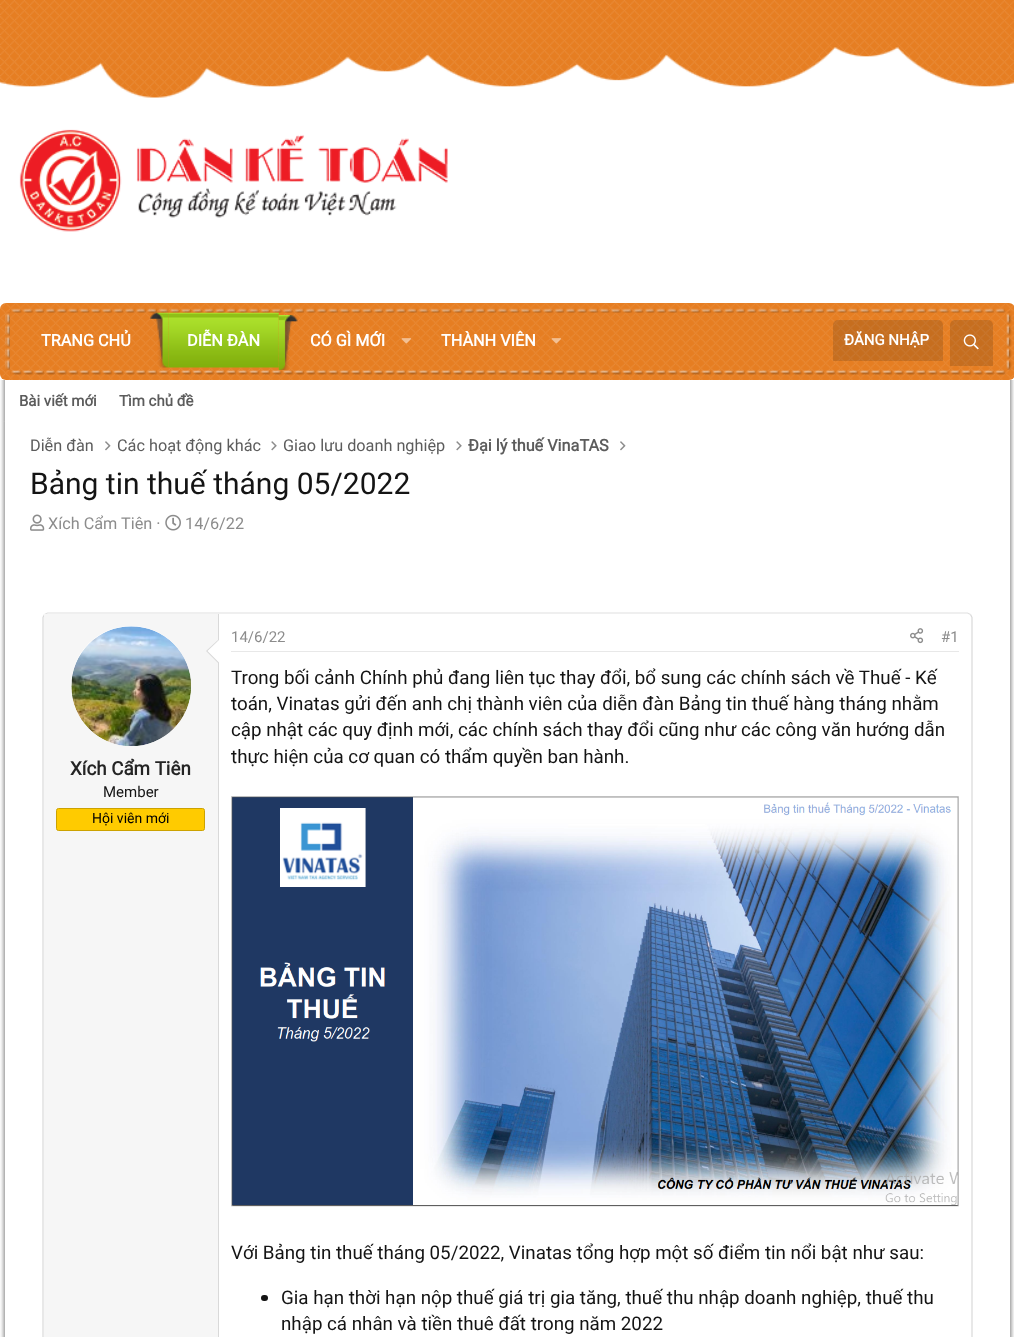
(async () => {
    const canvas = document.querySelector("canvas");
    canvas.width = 1014;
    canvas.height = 1337;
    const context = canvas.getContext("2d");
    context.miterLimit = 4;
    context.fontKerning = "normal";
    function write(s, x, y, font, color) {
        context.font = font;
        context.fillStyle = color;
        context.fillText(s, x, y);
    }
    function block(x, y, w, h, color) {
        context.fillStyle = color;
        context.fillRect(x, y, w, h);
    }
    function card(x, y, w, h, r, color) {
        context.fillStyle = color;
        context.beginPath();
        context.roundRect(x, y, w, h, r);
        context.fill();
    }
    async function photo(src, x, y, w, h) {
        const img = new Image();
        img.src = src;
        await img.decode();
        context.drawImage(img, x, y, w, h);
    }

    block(0, 0, 1014, 1337, "rgb(255, 255, 255)");
    await photo("media/1.png", 0, 0, 1014, 98);
    await photo("media/2.png", 19, 129, 429, 103);
    card(0, 303, 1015, 77, 6, "rgb(230, 126, 34)");
    await photo("media/3.png", 0, 303, 1014, 77);
    await photo("media/4.png", 5, 308, 1007, 67);
    write("TRANG CHỦ", 41, 346, "bold 16.25px Roboto", "rgb(255, 255, 255)");
    await photo("media/5.png", 150, 312, 19, 56);
    await photo("media/6.png", 168, 312, 111, 56);
    write("DIỄN ĐÀN", 187, 346, "bold 16.25px Roboto", "rgb(255, 255, 255)");
    await photo("media/7.png", 278, 315, 20, 55);
    write("CÓ GÌ MỚI", 310, 346, "bold 16.25px Roboto", "rgb(255, 255, 255)");
    await photo("media/8.png", 401, 338, 10, 6);
    write("THÀNH VIÊN", 441, 346, "bold 16.25px Roboto", "rgb(255, 255, 255)");
    await photo("media/9.png", 551, 338, 10, 6);
    context.fillStyle = "rgba(20, 20, 20, 0.15)";
    context.beginPath();
    context.roundRect(833, 320, 110, 41, [5, 5, 0, 0]);
    context.fill();
    write("ĐĂNG NHẬP", 844, 345, "bold 15px Roboto", "rgb(255, 255, 255)");
    context.fillStyle = "rgba(20, 20, 20, 0.15)";
    context.beginPath();
    context.roundRect(950, 320, 43, 46, [5, 5, 0, 0]);
    context.fill();
    await photo("media/10.png", 963, 334, 16, 16);
    await photo("media/12.png", 0, 421, 1014, 916);
    await photo("media/11.png", 0, 380, 1014, 42);
    write("Bài viết mới", 19, 406, "bold 15px Roboto", "rgb(92, 92, 92)");
    write("Tìm chủ đề", 119, 406, "bold 15px Roboto", "rgb(92, 92, 92)");
    write("Diễn đàn", 30, 451, "16.25px Roboto", "rgb(92, 92, 92)");
    await photo("media/13.png", 105, 441, 6, 10);
    write("Các hoạt động khác", 117, 451, "16.25px Roboto", "rgb(92, 92, 92)");
    await photo("media/14.png", 271, 441, 6, 10);
    write("Giao lưu doanh nghiệp", 283, 451, "16.25px Roboto", "rgb(92, 92, 92)");
    await photo("media/14.png", 456, 441, 6, 10);
    write("Đại lý thuế VinaTAS", 468, 451, "bold 16.25px Roboto", "rgb(92, 92, 92)");
    await photo("media/13.png", 620, 441, 6, 10);
    write("Bảng tin thuế tháng 05/2022", 30, 494, "30px Roboto", "rgb(20, 20, 20)");
    await photo("media/15.png", 30, 514, 15, 17);
    write("Xích Cẩm Tiên ·", 48, 529, "16.25px Roboto", "rgb(140, 140, 140)");
    await photo("media/16.png", 165, 514, 16, 17);
    write("14/6/22", 185, 529, "16.25px Roboto", "rgb(140, 140, 140)");
    context.beginPath();
    context.moveTo(44.5, 614.5);
    context.lineTo(47.5, 613);
    context.lineTo(967.5, 613);
    context.lineTo(970.5, 614.5);
    context.strokeStyle = "rgb(224, 224, 224)";
    context.lineWidth = 1.2;
    context.stroke();
    context.beginPath();
    context.moveTo(970.5, 614.5);
    context.lineTo(972, 617.5);
    context.lineTo(972, 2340);
    context.lineTo(970.5, 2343);
    context.strokeStyle = "rgb(217, 217, 217)";
    context.stroke();
    context.beginPath();
    context.moveTo(44.5, 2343);
    context.lineTo(43, 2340);
    context.lineTo(43, 617.5);
    context.lineTo(44.5, 614.5);
    context.stroke();
    block(44, 614, 174, 723, "rgb(246, 246, 246)");
    block(218, 614, 1, 723, "rgb(217, 217, 217)");
    context.fillStyle = "rgb(255, 255, 255)";
    context.beginPath();
    context.arc(131, 686, 60, 0, Math.PI * 2);
    context.fill();
    await photo("media/17.png", 71, 626, 120, 120);
    context.fillStyle = "rgb(217, 217, 217)";
    context.beginPath();
    context.moveTo(219, 639);
    context.lineTo(219, 664);
    context.lineTo(206, 651);
    context.closePath();
    context.fill();
    context.fillStyle = "rgb(255, 255, 255)";
    context.beginPath();
    context.moveTo(219, 640);
    context.lineTo(219, 662.5);
    context.lineTo(207.5, 651);
    context.closePath();
    context.fill();
    write("Xích Cẩm Tiên", 70, 775, "bold 18.75px Roboto", "rgb(36, 36, 36)");
    write("Member", 103, 797, "15px Roboto", "rgb(20, 20, 20)");
    context.fillStyle = "rgb(255, 203, 0)";
    context.beginPath();
    context.roundRect(56.5, 808.5, 148, 22, 2);
    context.fill();
    context.strokeStyle = "rgb(204, 162, 0)";
    context.lineWidth = 1;
    context.stroke();
    write("Hội viên mới", 92, 823, "14px Roboto", "rgb(0, 0, 0)");
    block(231, 651, 728, 1, "rgb(232, 232, 232)");
    write("14/6/22", 231, 642, "15px Roboto", "rgb(140, 140, 140)");
    await photo("media/18.png", 910, 628, 14, 16);
    write("#1", 941, 642, "15px Roboto", "rgb(140, 140, 140)");
    write("Trong bối cảnh Chính phủ đang liên tục thay đổi, bổ sung các chính sách về Thuế - Kế", 231, 684, "18.75px Roboto", "rgb(20, 20, 20)");
    write("toán, Vinatas gửi đến anh chị thành viên của diễn đàn Bảng tin thuế hàng tháng nhằm", 231, 710, "18.75px Roboto", "rgb(20, 20, 20)");
    write("cập nhật các quy định mới, các chính sách thay đổi cũng như các công văn hướng dẫn", 231, 736, "18.75px Roboto", "rgb(20, 20, 20)");
    write("thực hiện của cơ quan có thẩm quyền ban hành.", 231, 763, "18.75px Roboto", "rgb(20, 20, 20)");
    await photo("media/19.png", 231, 796, 728, 411);
    write("Với Bảng tin thuế tháng 05/2022, Vinatas tổng hợp một số điểm tin nổi bật như sau:", 231, 1259, "18.75px Roboto", "rgb(20, 20, 20)");
    card(261, 1295, 7, 6, 3, "rgb(20, 20, 20)");
    write("Gia hạn thời hạn nộp thuế giá trị gia tăng, thuế thu nhập doanh nghiệp, thuế thu", 281, 1304, "18.75px Roboto", "rgb(20, 20, 20)");
    write("nhập cá nhân và tiền thuê đất trong năm 2022", 281, 1330, "18.75px Roboto", "rgb(20, 20, 20)");
})();
